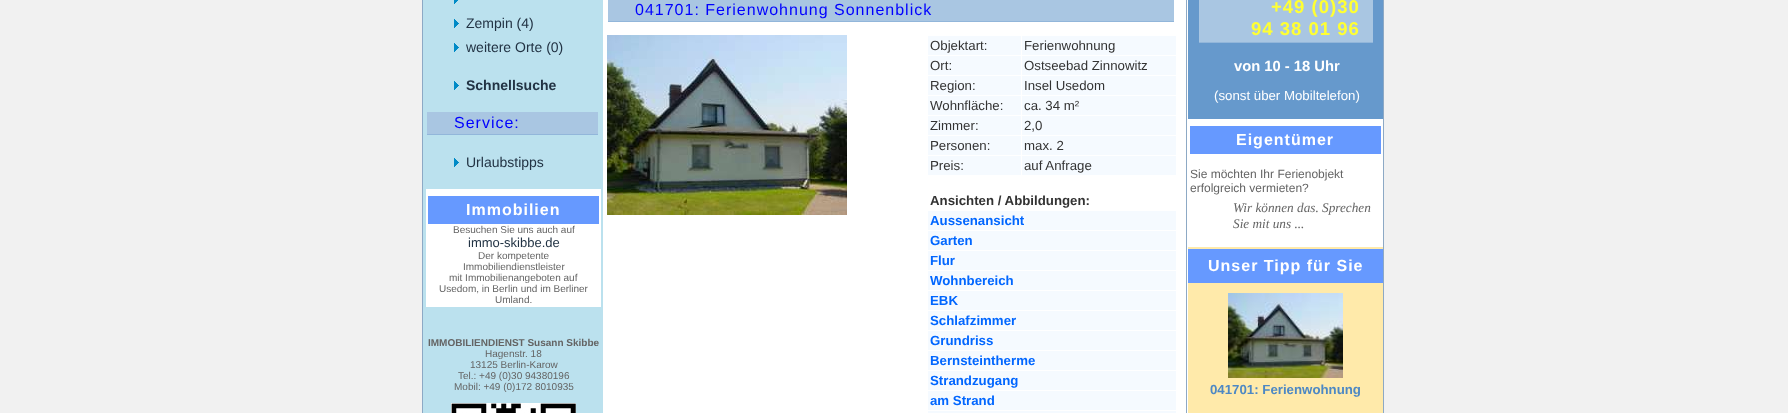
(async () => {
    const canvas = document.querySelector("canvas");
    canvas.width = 1788;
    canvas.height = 413;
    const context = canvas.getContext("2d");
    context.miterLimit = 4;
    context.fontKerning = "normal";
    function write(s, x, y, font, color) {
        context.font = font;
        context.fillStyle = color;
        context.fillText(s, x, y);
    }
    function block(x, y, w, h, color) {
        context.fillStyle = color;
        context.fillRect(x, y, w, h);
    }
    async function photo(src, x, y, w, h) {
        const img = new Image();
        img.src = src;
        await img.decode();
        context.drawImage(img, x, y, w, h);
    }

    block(0, 0, 1788, 413, "rgb(241, 241, 241)");
    block(603, 0, 780, 413, "rgb(255, 255, 255)");
    block(1383, 0, 1, 413, "rgb(141, 169, 197)");
    block(422, 0, 1, 413, "rgb(141, 169, 197)");
    block(423, 0, 180, 413, "rgb(187, 225, 238)");
    await photo("media/1.png", 454, 0, 4, 4);
    await photo("media/2.png", 454, 19, 5, 9);
    write("Zempin (4)", 466, 28, "14px Liberation Sans", "rgb(34, 51, 68)");
    await photo("media/2.png", 454, 43, 5, 9);
    write("weitere Orte (0)", 466, 52, "14px Liberation Sans", "rgb(34, 51, 68)");
    await photo("media/2.png", 454, 81, 5, 9);
    write("Schnellsuche", 466, 90, "bold 14px Liberation Sans", "rgb(34, 51, 68)");
    block(427, 112, 171, 22, "rgb(169, 198, 226)");
    block(427, 134, 171, 1, "rgb(146, 182, 218)");
    context.letterSpacing = "1px";
    write("Service:", 454, 128, "16px Liberation Sans", "rgb(0, 0, 255)");
    await photo("media/2.png", 454, 158, 5, 9);
    context.letterSpacing = "0px";
    write("Urlaubstipps", 466, 167, "14px Liberation Sans", "rgb(34, 51, 68)");
    block(426, 189, 175, 118, "rgb(255, 255, 255)");
    block(428, 196, 171, 28, "rgb(102, 153, 255)");
    context.letterSpacing = "1px";
    write("Immobilien", 466, 215, "bold 16px Liberation Sans", "rgb(255, 255, 255)");
    context.letterSpacing = "0px";
    write("Besuchen Sie uns auch auf", 453, 233, "10px Liberation Sans", "rgb(100, 100, 100)");
    write("immo-skibbe.de", 468, 247, "13px Liberation Sans", "rgb(34, 51, 68)");
    write("Der kompetente", 478, 259, "10px Liberation Sans", "rgb(100, 100, 100)");
    write("Immobiliendienstleister", 463, 270, "10px Liberation Sans", "rgb(100, 100, 100)");
    write("mit Immobilienangeboten auf", 449, 281, "10px Liberation Sans", "rgb(100, 100, 100)");
    write("Usedom, in Berlin und im Berliner", 439, 292, "10px Liberation Sans", "rgb(100, 100, 100)");
    write("Umland.", 495, 303, "10px Liberation Sans", "rgb(100, 100, 100)");
    write("IMMOBILIENDIENST Susann Skibbe", 428, 346, "bold 10px Liberation Sans", "rgb(100, 100, 100)");
    write("Hagenstr. 18", 485, 357, "10px Liberation Sans", "rgb(100, 100, 100)");
    write("13125 Berlin-Karow", 470, 368, "10px Liberation Sans", "rgb(100, 100, 100)");
    write("Tel.: +49 (0)30 94380196", 458, 379, "10px Liberation Sans", "rgb(100, 100, 100)");
    write("Mobil: +49 (0)172 8010935", 454, 390, "10px Liberation Sans", "rgb(100, 100, 100)");
    await photo("media/3.png", 451, 403, 125, 10);
    block(608, 0, 566, 21, "rgb(169, 198, 226)");
    block(608, 21, 566, 1, "rgb(146, 182, 218)");
    context.letterSpacing = "1px";
    write("041701: Ferienwohnung Sonnenblick", 635, 15, "16px Liberation Sans", "rgb(0, 0, 255)");
    await photo("media/4.png", 607, 35, 240, 180);
    block(928, 36, 93, 19, "rgb(245, 250, 255)");
    context.letterSpacing = "0px";
    write("Objektart:", 930, 50, "13.25px Liberation Sans", "rgb(51, 51, 51)");
    block(1022, 36, 154, 19, "rgb(245, 250, 255)");
    write("Ferienwohnung", 1024, 50, "13.25px Liberation Sans", "rgb(51, 51, 51)");
    block(928, 56, 93, 19, "rgb(245, 250, 255)");
    write("Ort:", 930, 70, "13.25px Liberation Sans", "rgb(51, 51, 51)");
    block(1022, 56, 154, 19, "rgb(245, 250, 255)");
    write("Ostseebad Zinnowitz", 1024, 70, "13.25px Liberation Sans", "rgb(51, 51, 51)");
    block(928, 76, 93, 19, "rgb(245, 250, 255)");
    write("Region:", 930, 90, "13.25px Liberation Sans", "rgb(51, 51, 51)");
    block(1022, 76, 154, 19, "rgb(245, 250, 255)");
    write("Insel Usedom", 1024, 90, "13.25px Liberation Sans", "rgb(51, 51, 51)");
    block(928, 96, 93, 19, "rgb(245, 250, 255)");
    write("Wohnfläche:", 930, 110, "13.25px Liberation Sans", "rgb(51, 51, 51)");
    block(1022, 96, 154, 19, "rgb(245, 250, 255)");
    write("ca. 34 m²", 1024, 110, "13.25px Liberation Sans", "rgb(51, 51, 51)");
    block(928, 116, 93, 19, "rgb(245, 250, 255)");
    write("Zimmer:", 930, 130, "13.25px Liberation Sans", "rgb(51, 51, 51)");
    block(1022, 116, 154, 19, "rgb(245, 250, 255)");
    write("2,0", 1024, 130, "13.25px Liberation Sans", "rgb(51, 51, 51)");
    block(928, 136, 93, 19, "rgb(245, 250, 255)");
    write("Personen:", 930, 150, "13.25px Liberation Sans", "rgb(51, 51, 51)");
    block(1022, 136, 154, 19, "rgb(245, 250, 255)");
    write("max. 2", 1024, 150, "13.25px Liberation Sans", "rgb(51, 51, 51)");
    block(928, 156, 93, 19, "rgb(245, 250, 255)");
    write("Preis:", 930, 170, "13.25px Liberation Sans", "rgb(51, 51, 51)");
    block(1022, 156, 154, 19, "rgb(245, 250, 255)");
    write("auf Anfrage", 1024, 170, "13.25px Liberation Sans", "rgb(51, 51, 51)");
    write("Ansichten / Abbildungen:", 930, 205, "bold 13.25px Liberation Sans", "rgb(51, 51, 51)");
    block(928, 211, 248, 19, "rgb(245, 250, 255)");
    write("Aussenansicht", 930, 225, "bold 13.25px Liberation Sans", "rgb(0, 102, 255)");
    block(928, 231, 248, 19, "rgb(245, 250, 255)");
    write("Garten", 930, 245, "bold 13.25px Liberation Sans", "rgb(0, 102, 255)");
    block(928, 251, 248, 19, "rgb(245, 250, 255)");
    write("Flur", 930, 265, "bold 13.25px Liberation Sans", "rgb(0, 102, 255)");
    block(928, 271, 248, 19, "rgb(245, 250, 255)");
    write("Wohnbereich", 930, 285, "bold 13.25px Liberation Sans", "rgb(0, 102, 255)");
    block(928, 291, 248, 19, "rgb(245, 250, 255)");
    write("EBK", 930, 305, "bold 13.25px Liberation Sans", "rgb(0, 102, 255)");
    block(928, 311, 248, 19, "rgb(245, 250, 255)");
    write("Schlafzimmer", 930, 325, "bold 13.25px Liberation Sans", "rgb(0, 102, 255)");
    block(928, 331, 248, 19, "rgb(245, 250, 255)");
    write("Grundriss", 930, 345, "bold 13.25px Liberation Sans", "rgb(0, 102, 255)");
    block(928, 351, 248, 19, "rgb(245, 250, 255)");
    write("Bernsteintherme", 930, 365, "bold 13.25px Liberation Sans", "rgb(0, 102, 255)");
    block(928, 371, 248, 19, "rgb(245, 250, 255)");
    write("Strandzugang", 930, 385, "bold 13.25px Liberation Sans", "rgb(0, 102, 255)");
    block(928, 391, 248, 19, "rgb(245, 250, 255)");
    write("am Strand", 930, 405, "bold 13.25px Liberation Sans", "rgb(0, 102, 255)");
    block(928, 411, 248, 2, "rgb(245, 250, 255)");
    block(1186, 0, 1, 413, "rgb(141, 169, 197)");
    block(1188, 0, 195, 119, "rgb(102, 153, 204)");
    block(1199, 0, 174, 42, "rgb(169, 198, 226)");
    block(1199, 42, 174, 1, "rgb(146, 182, 218)");
    context.letterSpacing = "1px";
    write("+49 (0)30", 1271, 13, "bold 18.5px Liberation Sans", "rgb(255, 255, 51)");
    write("94 38 01 96", 1251, 35, "bold 18.5px Liberation Sans", "rgb(255, 255, 51)");
    context.letterSpacing = "0px";
    write("von 10 - 18 Uhr", 1234, 71, "bold 14.75px Liberation Sans", "rgb(255, 255, 255)");
    write("(sonst über Mobiltelefon)", 1214, 100, "13.25px Liberation Sans", "rgb(255, 255, 255)");
    block(1190, 126, 191, 28, "rgb(102, 153, 255)");
    context.letterSpacing = "1px";
    write("Eigentümer", 1236, 145, "bold 16px Liberation Sans", "rgb(255, 255, 255)");
    context.letterSpacing = "0px";
    write("Sie möchten Ihr Ferienobjekt", 1190, 178, "12px Liberation Sans", "rgb(100, 100, 100)");
    write("erfolgreich vermieten?", 1190, 192, "12px Liberation Sans", "rgb(100, 100, 100)");
    write("Wir können das. Sprechen", 1233, 212, "italic 13.25px Liberation Serif", "rgb(100, 100, 100)");
    write("Sie mit uns ...", 1233, 228, "italic 13.25px Liberation Serif", "rgb(100, 100, 100)");
    block(1188, 247, 195, 166, "rgb(255, 234, 170)");
    block(1188, 249, 195, 34, "rgb(102, 153, 255)");
    context.letterSpacing = "1px";
    write("Unser Tipp für Sie", 1208, 271, "bold 16px Liberation Sans", "rgb(255, 255, 255)");
    await photo("media/5.png", 1228, 293, 115, 85);
    context.letterSpacing = "0px";
    write("041701: Ferienwohnung", 1210, 394, "bold 13.25px Liberation Sans", "rgb(77, 136, 196)");
})();
